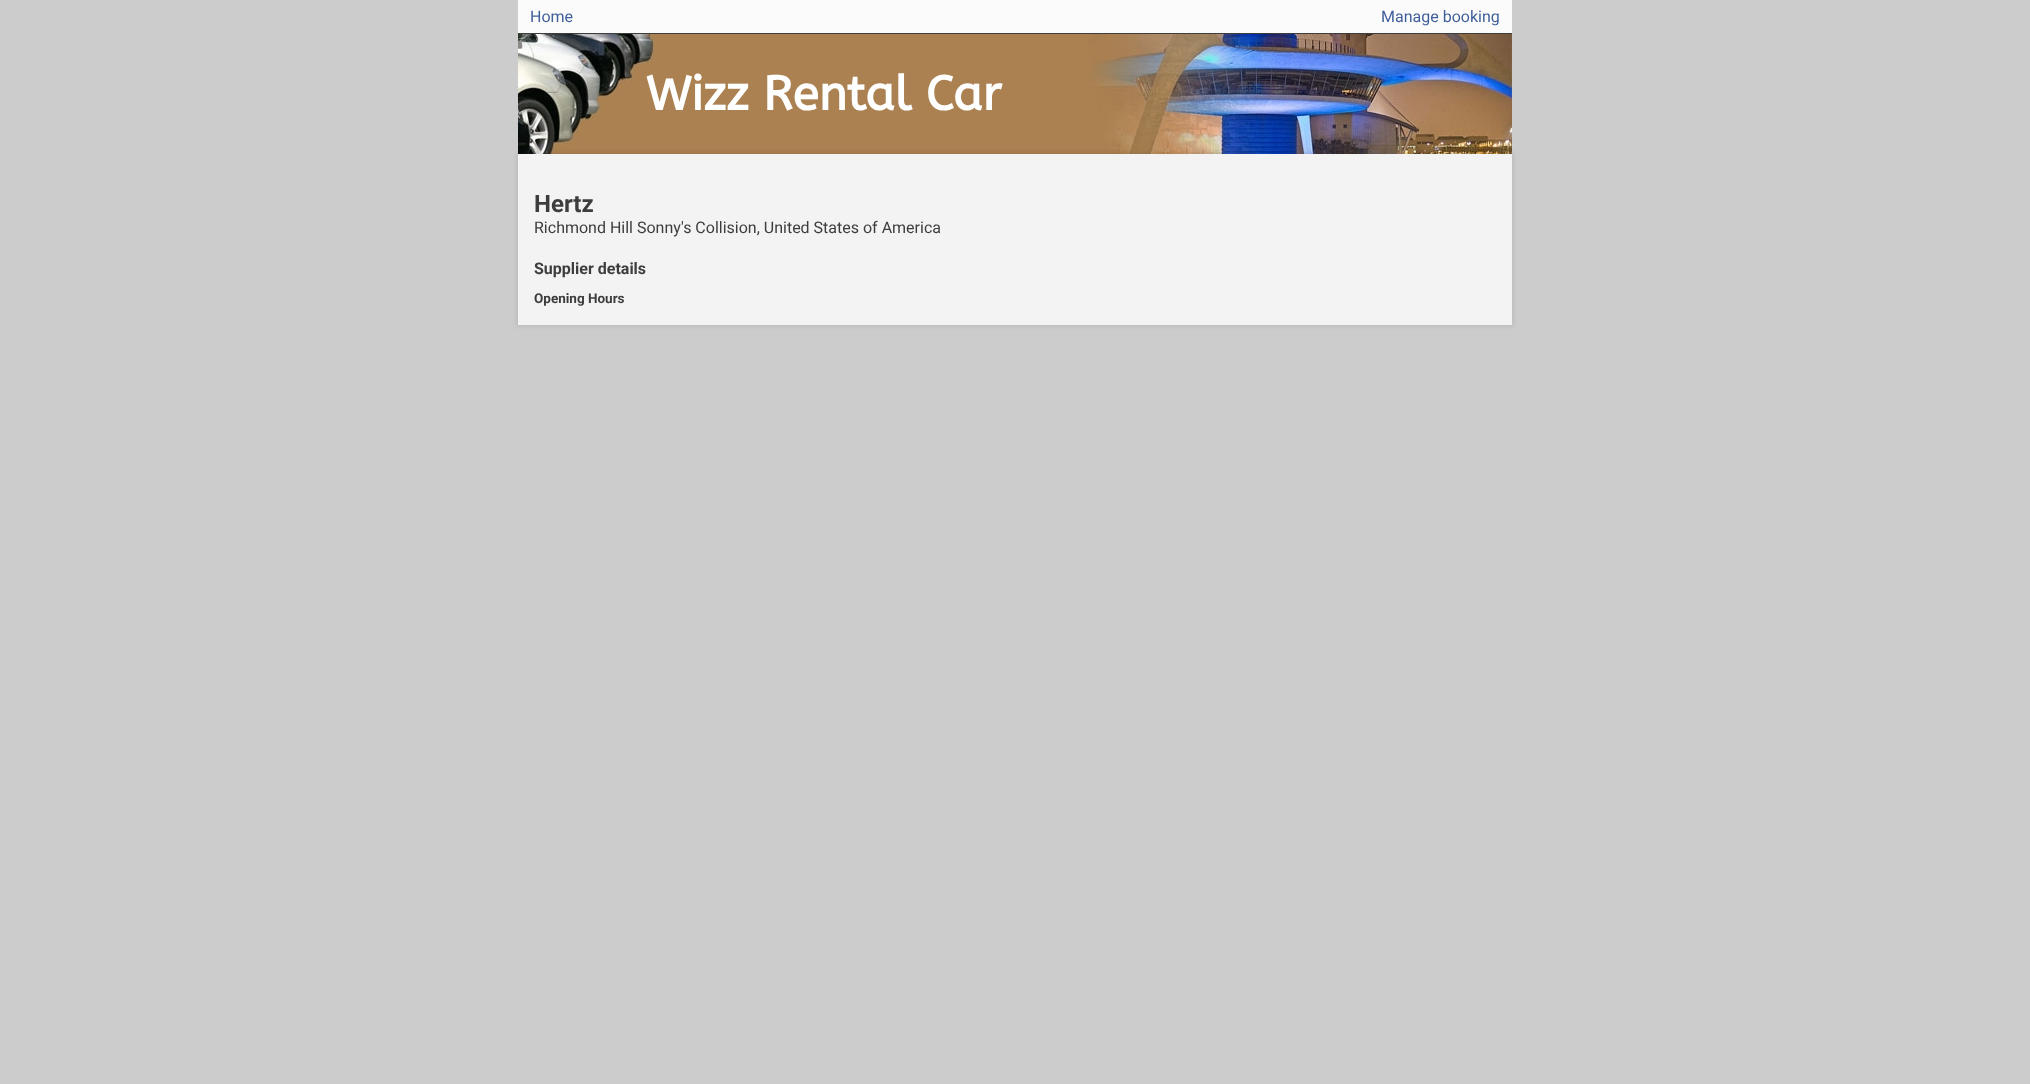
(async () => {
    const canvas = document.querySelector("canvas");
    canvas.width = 2030;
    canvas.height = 1084;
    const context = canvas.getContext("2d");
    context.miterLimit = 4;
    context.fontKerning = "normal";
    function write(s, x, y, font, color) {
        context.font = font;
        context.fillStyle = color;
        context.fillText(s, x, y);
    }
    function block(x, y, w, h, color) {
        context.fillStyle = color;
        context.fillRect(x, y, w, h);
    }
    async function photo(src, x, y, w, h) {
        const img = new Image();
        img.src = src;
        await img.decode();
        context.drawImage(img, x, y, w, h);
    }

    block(0, 0, 2030, 1084, "rgb(204, 204, 204)");
    block(518, 0, 994, 33, "rgb(251, 251, 251)");
    block(518, 33, 994, 1, "rgb(61, 61, 61)");
    write("Home", 530, 22, "16px Roboto", "rgb(63, 95, 155)");
    write("Manage booking", 1381, 22, "16px Roboto", "rgb(63, 95, 155)");
    await photo("media/1.png", 518, 34, 994, 120);
    write("Wizz Rental Car", 646, 110, "bold 48px ABeeZee", "rgb(255, 255, 255)");
    context.fillStyle = "rgba(0, 0, 0, 0.1)";
    context.filter = "blur(2.5px)";
    context.beginPath();
    context.rect(517, 153, 996, 173);
    context.fill();
    context.filter = "none";
    block(518, 154, 994, 171, "rgb(243, 243, 243)");
    write("Hertz", 534, 212, "bold 24px Roboto", "rgb(61, 61, 61)");
    write("Richmond Hill Sonny's Collision, United States of America", 534, 233, "16px Roboto", "rgb(61, 61, 61)");
    write("Supplier details", 534, 274, "bold 16px Roboto", "rgb(61, 61, 61)");
    write("Opening Hours", 534, 303, "bold 13.5px Roboto", "rgb(61, 61, 61)");
})();
